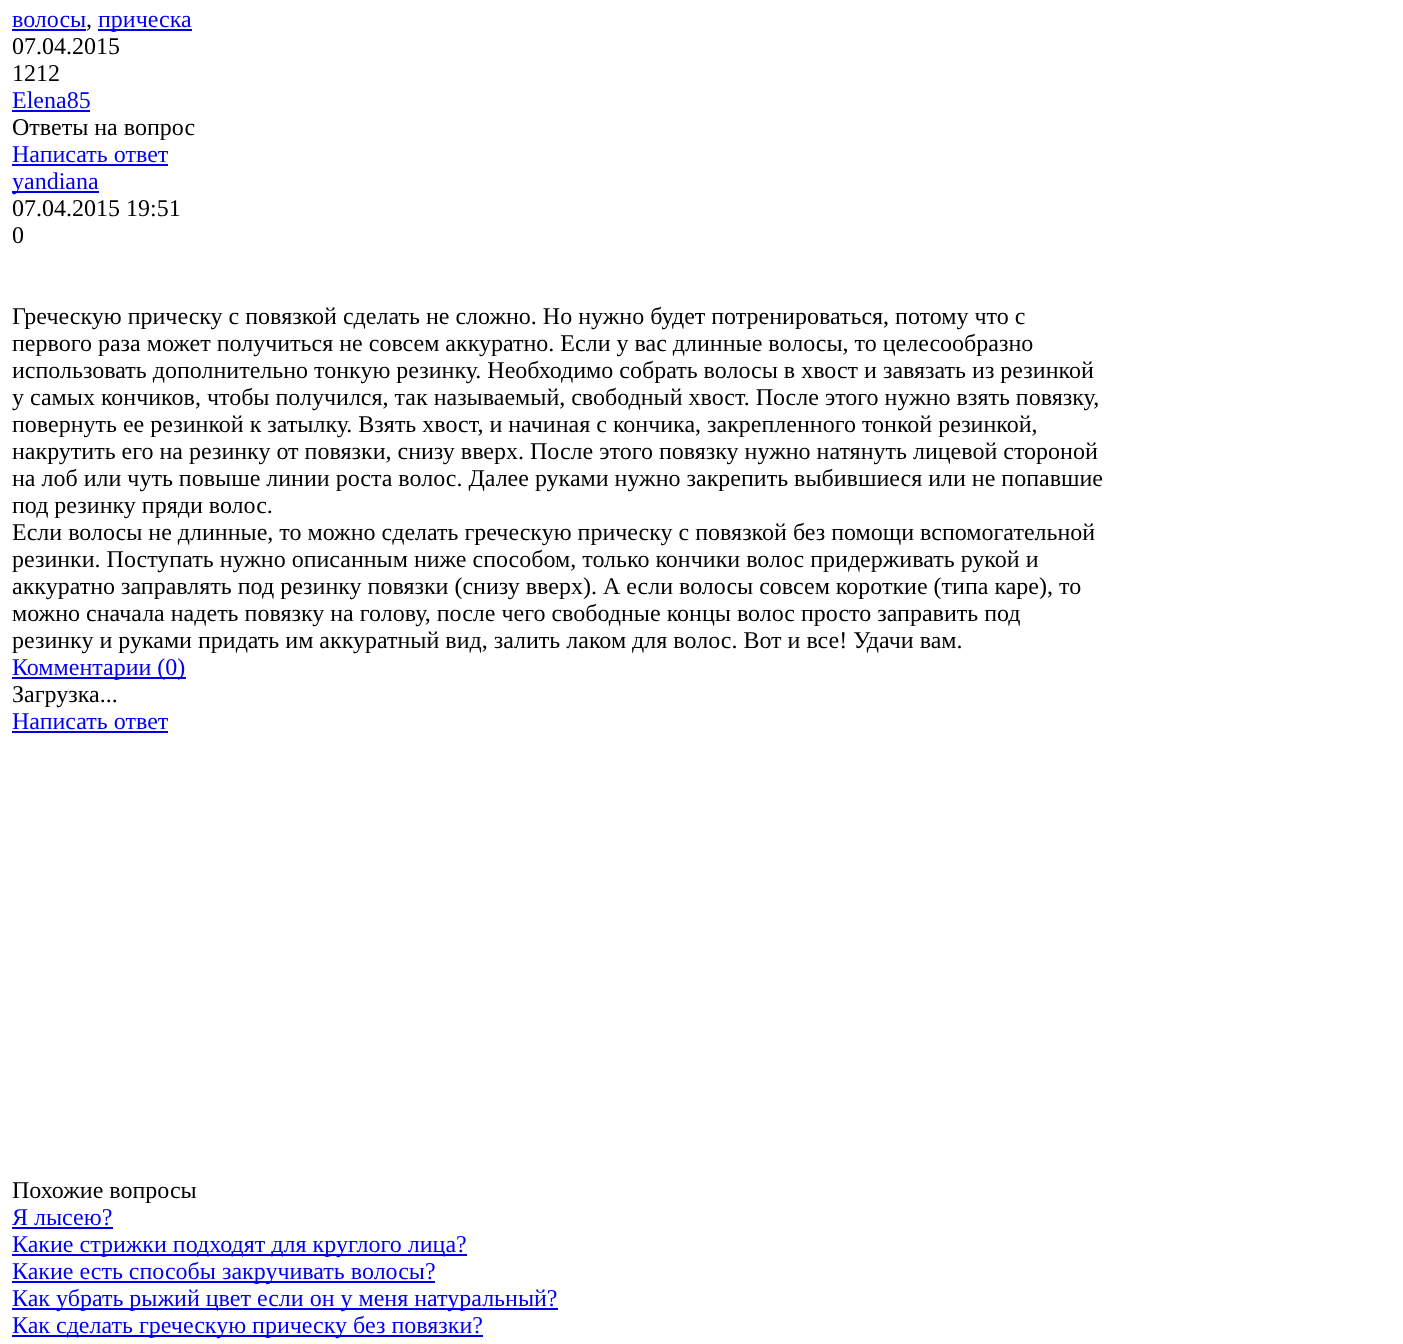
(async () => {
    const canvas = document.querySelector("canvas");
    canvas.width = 1403;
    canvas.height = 1344;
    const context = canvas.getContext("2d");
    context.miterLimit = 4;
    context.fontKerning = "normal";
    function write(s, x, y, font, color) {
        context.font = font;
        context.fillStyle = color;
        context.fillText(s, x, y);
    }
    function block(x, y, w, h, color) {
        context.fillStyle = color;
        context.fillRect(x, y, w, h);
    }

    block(0, 0, 1403, 1344, "rgb(255, 255, 255)");
    write("волосы", 12, 27, "24px Liberation Serif", "rgb(0, 0, 238)");
    block(12, 29, 74, 2, "rgb(0, 0, 238)");
    write(",", 86, 27, "24px Liberation Serif", "rgb(0, 0, 0)");
    block(98, 29, 94, 2, "rgb(0, 0, 238)");
    write("прическа", 98, 27, "24px Liberation Serif", "rgb(0, 0, 238)");
    write("07.04.2015", 12, 54, "24px Liberation Serif", "rgb(0, 0, 0)");
    write("1212", 12, 81, "24px Liberation Serif", "rgb(0, 0, 0)");
    write("Elena85", 12, 108, "24px Liberation Serif", "rgb(0, 0, 238)");
    block(12, 110, 78, 2, "rgb(0, 0, 238)");
    write("Ответы на вопрос", 12, 135, "24px Liberation Serif", "rgb(0, 0, 0)");
    write("Написать ответ", 12, 162, "24px Liberation Serif", "rgb(0, 0, 238)");
    block(12, 164, 156, 2, "rgb(0, 0, 238)");
    block(12, 191, 87, 2, "rgb(0, 0, 238)");
    write("yandiana", 12, 189, "24px Liberation Serif", "rgb(0, 0, 238)");
    write("07.04.2015 19:51", 12, 216, "24px Liberation Serif", "rgb(0, 0, 0)");
    write("0", 12, 243, "24px Liberation Serif", "rgb(0, 0, 0)");
    write("Греческую прическу с повязкой сделать не сложно. Но нужно будет потренироваться, потому что с", 12, 324, "24px Liberation Serif", "rgb(0, 0, 0)");
    write("первого раза может получиться не совсем аккуратно. Если у вас длинные волосы, то целесообразно", 12, 351, "24px Liberation Serif", "rgb(0, 0, 0)");
    write("использовать дополнительно тонкую резинку. Необходимо собрать волосы в хвост и завязать из резинкой", 12, 378, "24px Liberation Serif", "rgb(0, 0, 0)");
    write("у самых кончиков, чтобы получился, так называемый, свободный хвост. После этого нужно взять повязку,", 12, 405, "24px Liberation Serif", "rgb(0, 0, 0)");
    write("повернуть ее резинкой к затылку. Взять хвост, и начиная с кончика, закрепленного тонкой резинкой,", 12, 432, "24px Liberation Serif", "rgb(0, 0, 0)");
    write("накрутить его на резинку от повязки, снизу вверх. После этого повязку нужно натянуть лицевой стороной", 12, 459, "24px Liberation Serif", "rgb(0, 0, 0)");
    write("на лоб или чуть повыше линии роста волос. Далее руками нужно закрепить выбившиеся или не попавшие", 12, 486, "24px Liberation Serif", "rgb(0, 0, 0)");
    write("под резинку пряди волос.", 12, 513, "24px Liberation Serif", "rgb(0, 0, 0)");
    write("Если волосы не длинные, то можно сделать греческую прическу с повязкой без помощи вспомогательной", 12, 540, "24px Liberation Serif", "rgb(0, 0, 0)");
    write("резинки. Поступать нужно описанным ниже способом, только кончики волос придерживать рукой и", 12, 567, "24px Liberation Serif", "rgb(0, 0, 0)");
    write("аккуратно заправлять под резинку повязки (снизу вверх). А если волосы совсем короткие (типа каре), то", 12, 594, "24px Liberation Serif", "rgb(0, 0, 0)");
    write("можно сначала надеть повязку на голову, после чего свободные концы волос просто заправить под", 12, 621, "24px Liberation Serif", "rgb(0, 0, 0)");
    write("резинку и руками придать им аккуратный вид, залить лаком для волос. Вот и все! Удачи вам.", 12, 648, "24px Liberation Serif", "rgb(0, 0, 0)");
    block(12, 677, 174, 2, "rgb(0, 0, 238)");
    write("Комментарии (0)", 12, 675, "24px Liberation Serif", "rgb(0, 0, 238)");
    write("Загрузка...", 12, 702, "24px Liberation Serif", "rgb(0, 0, 0)");
    write("Написать ответ", 12, 729, "24px Liberation Serif", "rgb(0, 0, 238)");
    block(12, 731, 156, 2, "rgb(0, 0, 238)");
    write("Похожие вопросы", 12, 1198, "24px Liberation Serif", "rgb(0, 0, 0)");
    write("Я лысею?", 12, 1225, "24px Liberation Serif", "rgb(0, 0, 238)");
    block(12, 1227, 101, 2, "rgb(0, 0, 238)");
    block(12, 1254, 455, 2, "rgb(0, 0, 238)");
    write("Какие стрижки подходят для круглого лица?", 12, 1252, "24px Liberation Serif", "rgb(0, 0, 238)");
    block(12, 1281, 423, 2, "rgb(0, 0, 238)");
    write("Какие есть способы закручивать волосы?", 12, 1279, "24px Liberation Serif", "rgb(0, 0, 238)");
    block(12, 1308, 546, 2, "rgb(0, 0, 238)");
    write("Как убрать рыжий цвет если он у меня натуральный?", 12, 1306, "24px Liberation Serif", "rgb(0, 0, 238)");
    block(12, 1335, 471, 2, "rgb(0, 0, 238)");
    write("Как сделать греческую прическу без повязки?", 12, 1333, "24px Liberation Serif", "rgb(0, 0, 238)");
})();
